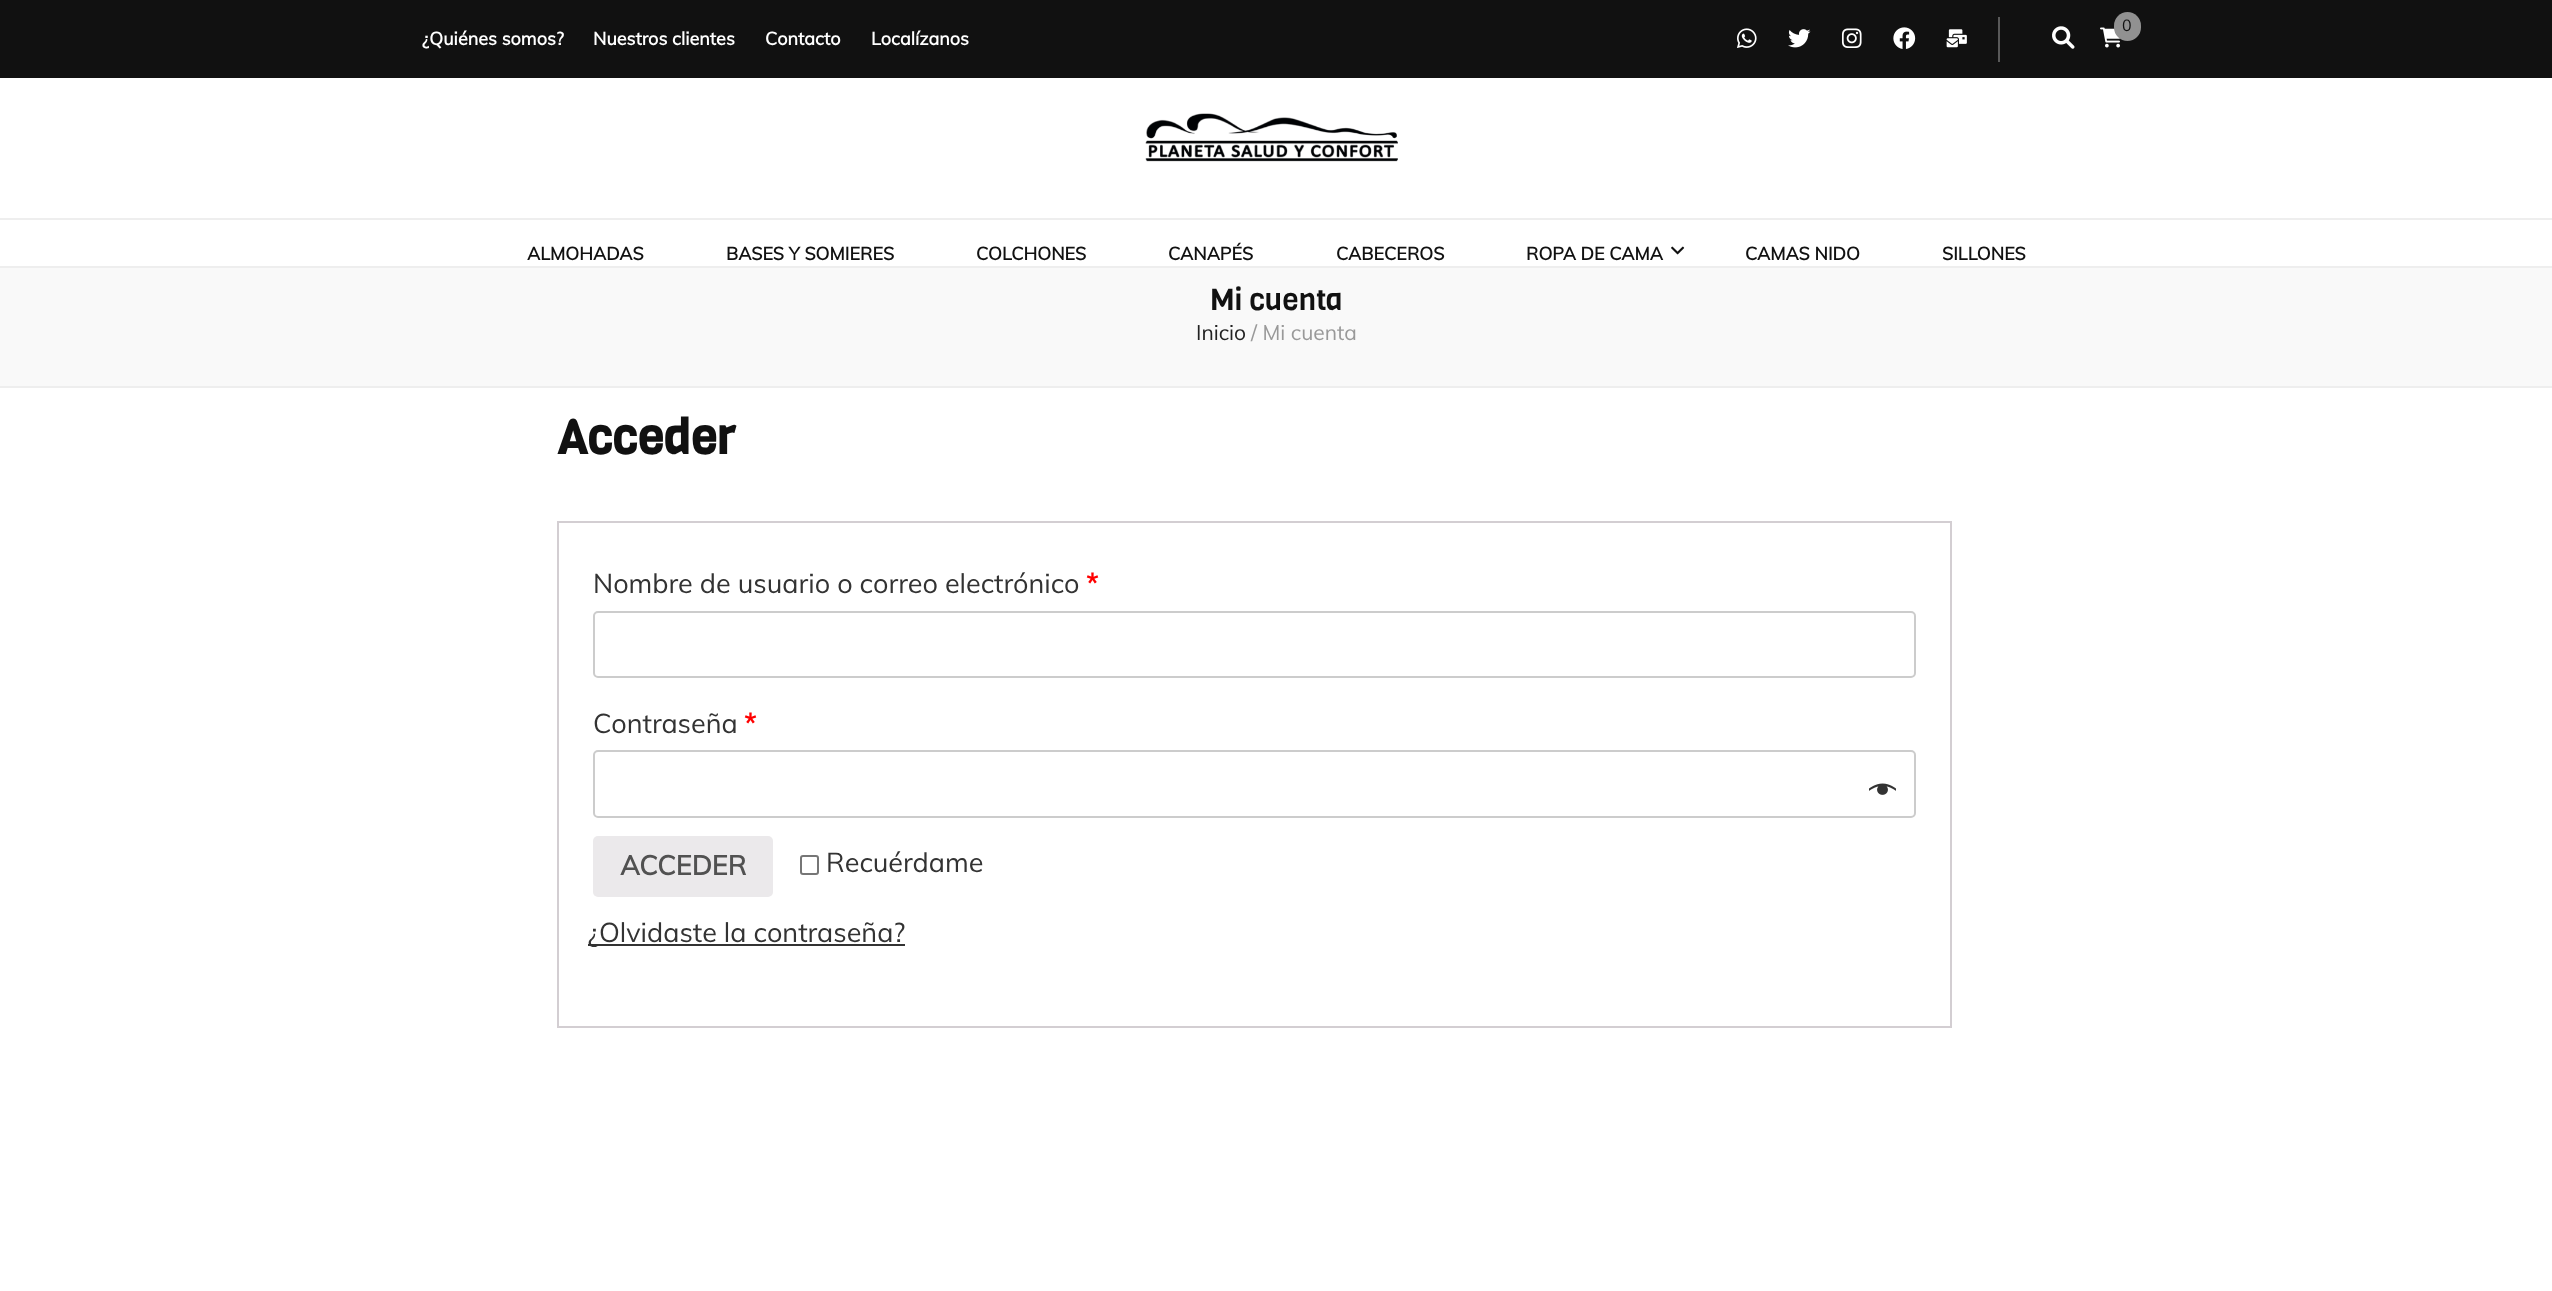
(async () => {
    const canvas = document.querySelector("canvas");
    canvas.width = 2552;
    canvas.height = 1291;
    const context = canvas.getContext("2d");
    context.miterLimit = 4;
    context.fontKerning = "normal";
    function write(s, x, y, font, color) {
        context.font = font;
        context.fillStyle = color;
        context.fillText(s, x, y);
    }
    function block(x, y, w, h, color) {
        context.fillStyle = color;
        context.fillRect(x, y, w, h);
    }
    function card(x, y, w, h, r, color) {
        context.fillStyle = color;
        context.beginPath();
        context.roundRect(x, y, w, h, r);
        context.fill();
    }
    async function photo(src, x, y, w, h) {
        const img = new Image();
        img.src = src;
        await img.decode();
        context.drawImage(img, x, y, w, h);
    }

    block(0, 0, 2552, 1291, "rgb(255, 255, 255)");
    block(0, 0, 2552, 78, "rgb(17, 17, 17)");
    block(1998, 17, 2, 45, "rgb(89, 89, 89)");
    await photo("media/1.png", 1737, 28, 20, 20);
    await photo("media/2.png", 1788, 29, 23, 19);
    await photo("media/3.png", 1841, 28, 21, 20);
    await photo("media/4.png", 1893, 27, 23, 22);
    await photo("media/5.png", 1946, 29, 21, 19);
    await photo("media/6.png", 2052, 26, 23, 23);
    await photo("media/7.png", 2100, 27, 20, 21);
    card(2114, 12, 27, 29, 13.5, "rgb(145, 145, 145)");
    write("0", 2122, 31, "16px Muli", "rgb(17, 17, 17)");
    write("¿Quiénes somos?", 422, 45, "bold 18px Muli", "rgb(255, 255, 255)");
    write("Nuestros clientes", 593, 45, "bold 18px Muli", "rgb(255, 255, 255)");
    write("Contacto", 765, 45, "bold 18px Muli", "rgb(255, 255, 255)");
    write("Localízanos", 871, 45, "bold 18px Muli", "rgb(255, 255, 255)");
    await photo("media/8.png", 1145, 113, 253, 49);
    block(0, 218, 2552, 2, "rgb(238, 238, 238)");
    block(0, 266, 2552, 2, "rgb(238, 238, 238)");
    write("ALMOHADAS", 527, 260, "bold 18px Muli", "rgb(17, 17, 17)");
    write("BASES Y SOMIERES", 726, 260, "bold 18px Muli", "rgb(17, 17, 17)");
    write("COLCHONES", 976, 260, "bold 18px Muli", "rgb(17, 17, 17)");
    write("CANAPÉS", 1168, 260, "bold 18px Muli", "rgb(17, 17, 17)");
    write("CABECEROS", 1336, 260, "bold 18px Muli", "rgb(17, 17, 17)");
    write("ROPA DE CAMA", 1526, 260, "bold 18px Muli", "rgb(17, 17, 17)");
    await photo("media/9.png", 1671, 246, 14, 9);
    write("CAMAS NIDO", 1745, 260, "bold 18px Muli", "rgb(17, 17, 17)");
    write("SILLONES", 1942, 260, "bold 18px Muli", "rgb(17, 17, 17)");
    block(0, 268, 2552, 118, "rgb(249, 249, 249)");
    block(0, 386, 2552, 2, "rgb(238, 238, 238)");
    write("Mi cuenta", 1210, 310, "30px Viga", "rgb(17, 17, 17)");
    write("Inicio", 1196, 340, "21px Muli", "rgb(34, 34, 34)");
    write("/ Mi cuenta", 1251, 340, "21px Muli", "rgb(153, 153, 153)");
    write("Acceder", 557, 454, "bold 48px Viga", "rgb(17, 17, 17)");
    context.strokeStyle = "rgb(211, 206, 210)";
    context.lineWidth = 2;
    context.strokeRect(558, 522, 1393, 505);
    write("Nombre de usuario o correo electrónico", 593, 593, "27px Muli", "rgb(51, 51, 51)");
    write("*", 1086, 593, "bold 27px Muli", "rgb(255, 0, 0)");
    context.beginPath();
    context.roundRect(594, 612, 1321, 65, 4);
    context.strokeStyle = "rgb(204, 204, 204)";
    context.stroke();
    write("Contraseña", 593, 733, "27px Muli", "rgb(51, 51, 51)");
    write("*", 744, 733, "bold 27px Muli", "rgb(255, 0, 0)");
    context.beginPath();
    context.roundRect(594, 751, 1321, 66, 4);
    context.stroke();
    await photo("media/10.png", 1869, 783, 27, 12);
    card(593, 836, 180, 61, 5, "rgb(235, 233, 235)");
    write("ACCEDER", 620, 875, "bold 27px Muli", "rgb(81, 81, 81)");
    context.beginPath();
    context.roundRect(801, 856, 17, 18, 2);
    context.strokeStyle = "rgb(118, 118, 118)";
    context.stroke();
    write("Recuérdame", 826, 872, "27px Muli", "rgb(51, 51, 51)");
    block(588, 944, 317, 2, "rgb(51, 51, 51)");
    write("¿Olvidaste la contraseña?", 588, 942, "27px Muli", "rgb(51, 51, 51)");
})();
